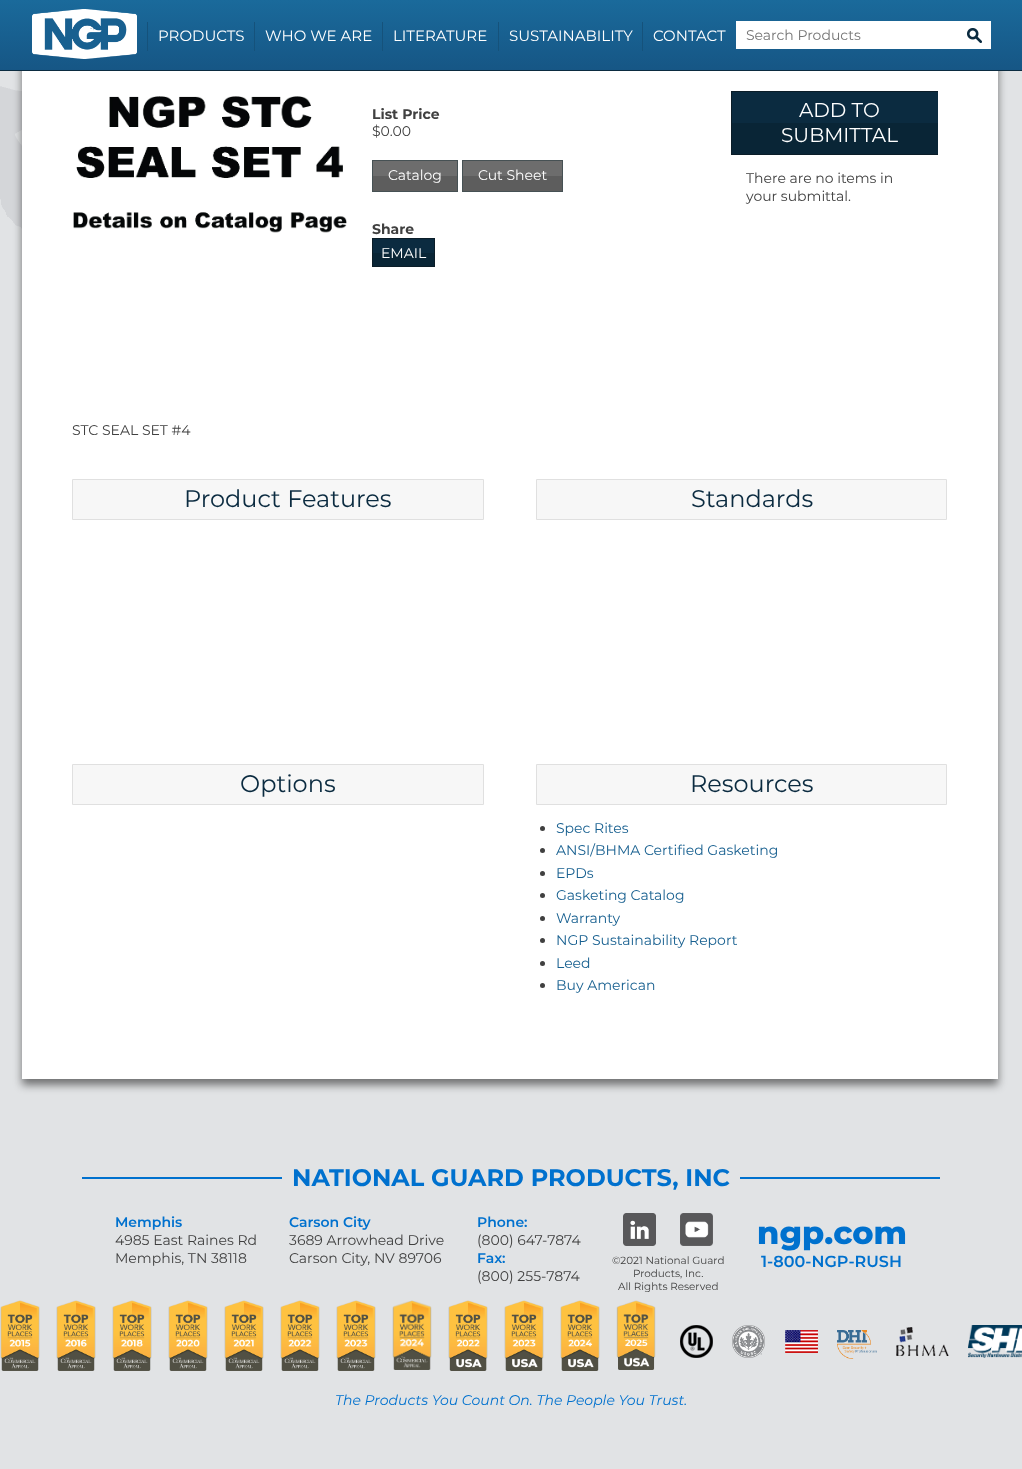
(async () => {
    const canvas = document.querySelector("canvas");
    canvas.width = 1022;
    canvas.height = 1469;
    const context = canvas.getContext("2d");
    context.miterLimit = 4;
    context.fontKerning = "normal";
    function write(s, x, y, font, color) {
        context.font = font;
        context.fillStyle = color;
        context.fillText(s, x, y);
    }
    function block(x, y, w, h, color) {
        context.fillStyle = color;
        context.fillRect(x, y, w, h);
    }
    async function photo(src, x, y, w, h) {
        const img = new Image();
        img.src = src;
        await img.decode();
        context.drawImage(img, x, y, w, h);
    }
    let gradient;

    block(0, 0, 1022, 1469, "rgb(225, 227, 229)");
    await photo("media/1.png", 0, 86, 22, 143);
    context.fillStyle = "rgba(0, 0, 0, 0.5)";
    context.filter = "blur(4.5px)";
    context.beginPath();
    context.rect(22, -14, 976, 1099);
    context.fill();
    context.filter = "none";
    gradient = context.createLinearGradient(511, 0, 511, 70);
    gradient.addColorStop(0, "rgb(26, 106, 155)");
    gradient.addColorStop(1, "rgb(22, 86, 133)");
    context.fillStyle = gradient;
    context.fillRect(0, 0, 1022, 70);
    block(0, 70, 1022, 1, "rgb(11, 43, 64)");
    await photo("media/2.png", 32, 9, 105, 50);
    block(147, 22, 1, 29, "rgb(21, 82, 123)");
    write("PRODUCTS", 158, 41, "15px Montserrat", "rgb(255, 255, 255)");
    block(254, 22, 1, 29, "rgb(21, 82, 123)");
    write("WHO WE ARE", 265, 41, "15px Montserrat", "rgb(255, 255, 255)");
    block(382, 22, 1, 29, "rgb(21, 82, 123)");
    write("LITERATURE", 393, 41, "15px Montserrat", "rgb(255, 255, 255)");
    block(498, 22, 1, 29, "rgb(21, 82, 123)");
    write("SUSTAINABILITY", 509, 41, "15px Montserrat", "rgb(255, 255, 255)");
    block(642, 22, 1, 29, "rgb(21, 82, 123)");
    write("CONTACT", 653, 41, "15px Montserrat", "rgb(255, 255, 255)");
    block(736, 21, 255, 28, "rgb(255, 255, 255)");
    write("Search Products", 746, 40, "14px Montserrat", "rgb(117, 117, 117)");
    await photo("media/3.png", 967, 28, 15, 15);
    block(22, 71, 976, 1008, "rgb(255, 255, 255)");
    await photo("media/4.png", 73, 96, 274, 137);
    write("List Price", 372, 119, "bold 14px Montserrat", "rgb(64, 64, 64)");
    write("$0.00", 372, 136, "14px Montserrat", "rgb(64, 64, 64)");
    block(373, 161, 84, 15, "rgb(109, 109, 109)");
    block(373, 176, 84, 15, "rgb(93, 93, 93)");
    context.strokeStyle = "rgb(70, 81, 84)";
    context.strokeRect(372.5, 160.5, 85, 31);
    write("Catalog", 388, 180, "14px Montserrat", "rgb(255, 255, 255)");
    block(463, 161, 99, 15, "rgb(109, 109, 109)");
    block(463, 176, 99, 15, "rgb(93, 93, 93)");
    context.strokeRect(462.5, 160.5, 100, 31);
    write("Cut Sheet", 478, 180, "14px Montserrat", "rgb(255, 255, 255)");
    write("Share", 372, 234, "bold 14px Montserrat", "rgb(64, 64, 64)");
    block(373, 239, 61, 14, "rgb(11, 43, 64)");
    block(373, 253, 61, 13, "rgb(9, 37, 54)");
    context.strokeStyle = "rgb(11, 29, 40)";
    context.strokeRect(372.5, 238.5, 62, 28);
    write("EMAIL", 381, 258, "14px Montserrat", "rgb(255, 255, 255)");
    block(732, 92, 206, 31, "rgb(11, 43, 64)");
    block(732, 123, 206, 31, "rgb(9, 37, 54)");
    context.save();
    context.beginPath();
    context.rect(731, 91, 207, 64);
    context.clip();
    context.strokeRect(731.5, 91.5, 216, 63);
    context.restore();
    write("ADD TO", 799, 117, "20px Montserrat", "rgb(255, 255, 255)");
    write("SUBMITTAL", 781, 142, "20px Montserrat", "rgb(255, 255, 255)");
    write("There are no items in", 746, 183, "14px Montserrat", "rgb(64, 64, 64)");
    write("your submittal.", 746, 201, "14px Montserrat", "rgb(64, 64, 64)");
    write("STC SEAL SET #4", 72, 435, "14px Montserrat", "rgb(64, 64, 64)");
    context.fillStyle = "rgb(247, 247, 247)";
    context.beginPath();
    context.rect(72.5, 479.5, 411, 40);
    context.fill();
    context.strokeStyle = "rgb(224, 224, 224)";
    context.stroke();
    write("Product Features", 184, 507, "24px Montserrat", "rgb(11, 43, 64)");
    context.fillStyle = "rgb(247, 247, 247)";
    context.beginPath();
    context.rect(536.5, 479.5, 410, 40);
    context.fill();
    context.stroke();
    write("Standards", 691, 507, "24px Montserrat", "rgb(11, 43, 64)");
    context.fillStyle = "rgb(247, 247, 247)";
    context.beginPath();
    context.rect(72.5, 764.5, 411, 40);
    context.fill();
    context.stroke();
    write("Options", 240, 792, "24px Montserrat", "rgb(11, 43, 64)");
    context.fillStyle = "rgb(247, 247, 247)";
    context.beginPath();
    context.rect(536.5, 764.5, 410, 40);
    context.fill();
    context.stroke();
    write("Resources", 690, 792, "24px Montserrat", "rgb(11, 43, 64)");
    context.fillStyle = "rgb(64, 64, 64)";
    context.beginPath();
    context.arc(542.5, 828.5, 2.5, 0, Math.PI * 2);
    context.fill();
    write("Spec Rites", 556, 833, "14px Montserrat", "rgb(24, 96, 144)");
    context.fillStyle = "rgb(64, 64, 64)";
    context.beginPath();
    context.arc(542.5, 850.5, 2.5, 0, Math.PI * 2);
    context.fill();
    write("ANSI/BHMA Certified Gasketing", 556, 855, "14px Montserrat", "rgb(24, 96, 144)");
    context.fillStyle = "rgb(64, 64, 64)";
    context.beginPath();
    context.arc(542.5, 873.5, 2.5, 0, Math.PI * 2);
    context.fill();
    write("EPDs", 556, 878, "14px Montserrat", "rgb(24, 96, 144)");
    context.fillStyle = "rgb(64, 64, 64)";
    context.beginPath();
    context.arc(542.5, 895.5, 2.5, 0, Math.PI * 2);
    context.fill();
    write("Gasketing Catalog", 556, 900, "14px Montserrat", "rgb(24, 96, 144)");
    context.fillStyle = "rgb(64, 64, 64)";
    context.beginPath();
    context.arc(542.5, 918.5, 2.5, 0, Math.PI * 2);
    context.fill();
    write("Warranty", 556, 923, "14px Montserrat", "rgb(24, 96, 144)");
    context.fillStyle = "rgb(64, 64, 64)";
    context.beginPath();
    context.arc(542.5, 940.5, 2.5, 0, Math.PI * 2);
    context.fill();
    write("NGP Sustainability Report", 556, 945, "14px Montserrat", "rgb(24, 96, 144)");
    context.fillStyle = "rgb(64, 64, 64)";
    context.beginPath();
    context.arc(542.5, 963.5, 2.5, 0, Math.PI * 2);
    context.fill();
    write("Leed", 556, 968, "14px Montserrat", "rgb(24, 96, 144)");
    context.fillStyle = "rgb(64, 64, 64)";
    context.beginPath();
    context.arc(542.5, 985.5, 2.5, 0, Math.PI * 2);
    context.fill();
    write("Buy American", 556, 990, "14px Montserrat", "rgb(24, 96, 144)");
    block(82, 1177, 200, 2, "rgb(0, 113, 206)");
    write("NATIONAL GUARD PRODUCTS, INC", 292, 1186, "bold 24px Montserrat", "rgb(0, 113, 206)");
    block(740, 1177, 200, 2, "rgb(0, 113, 206)");
    write("Memphis", 115, 1227, "600 14px Montserrat", "rgb(0, 113, 206)");
    write("4985 East Raines Rd", 115, 1245, "14px Montserrat", "rgb(64, 64, 64)");
    write("Memphis, TN 38118", 115, 1263, "14px Montserrat", "rgb(64, 64, 64)");
    write("Carson City", 289, 1227, "600 14px Montserrat", "rgb(0, 113, 206)");
    write("3689 Arrowhead Drive", 289, 1245, "14px Montserrat", "rgb(64, 64, 64)");
    write("Carson City, NV 89706", 289, 1263, "14px Montserrat", "rgb(64, 64, 64)");
    write("Phone:", 477, 1227, "600 14px Montserrat", "rgb(0, 113, 206)");
    write("(800) 647-7874", 477, 1245, "14px Montserrat", "rgb(64, 64, 64)");
    write("Fax:", 477, 1263, "600 14px Montserrat", "rgb(0, 113, 206)");
    write("(800) 255-7874", 477, 1281, "14px Montserrat", "rgb(64, 64, 64)");
    write("ngp.com", 757, 1244, "800 32px Montserrat", "rgb(0, 113, 206)");
    write("1-800-NGP-RUSH", 761, 1267, "600 16px Montserrat", "rgb(0, 113, 206)");
    await photo("media/5.png", 623, 1213, 33, 33);
    await photo("media/6.png", 680, 1213, 33, 33);
    write("©2021 National Guard", 612, 1264, "10.4px Montserrat", "rgb(64, 64, 64)");
    write("Products, Inc.", 633, 1277, "10.4px Montserrat", "rgb(64, 64, 64)");
    write("All Rights Reserved", 618, 1290, "10.4px Montserrat", "rgb(64, 64, 64)");
    await photo("media/7.png", 0, 1300, 40, 71);
    await photo("media/8.png", 56, 1300, 40, 71);
    await photo("media/9.png", 112, 1300, 40, 71);
    await photo("media/10.png", 168, 1300, 40, 71);
    await photo("media/11.png", 224, 1300, 40, 71);
    await photo("media/12.png", 280, 1300, 40, 71);
    await photo("media/13.png", 336, 1300, 40, 71);
    await photo("media/14.png", 392, 1300, 40, 70);
    await photo("media/15.png", 448, 1300, 40, 71);
    await photo("media/16.png", 504, 1300, 40, 71);
    await photo("media/17.png", 560, 1300, 40, 71);
    await photo("media/18.png", 616, 1300, 40, 70);
    await photo("media/19.png", 680, 1325, 33, 33);
    await photo("media/20.png", 732, 1325, 33, 33);
    await photo("media/21.png", 785, 1330, 33, 23);
    await photo("media/22.png", 837, 1330, 40, 29);
    await photo("media/23.png", 896, 1327, 53, 29);
    await photo("media/24.png", 968, 1325, 54, 33);
    write("The Products You Count On. The People You Trust.", 335, 1405, "italic 100 14px Montserrat", "rgb(0, 113, 206)");
})();
